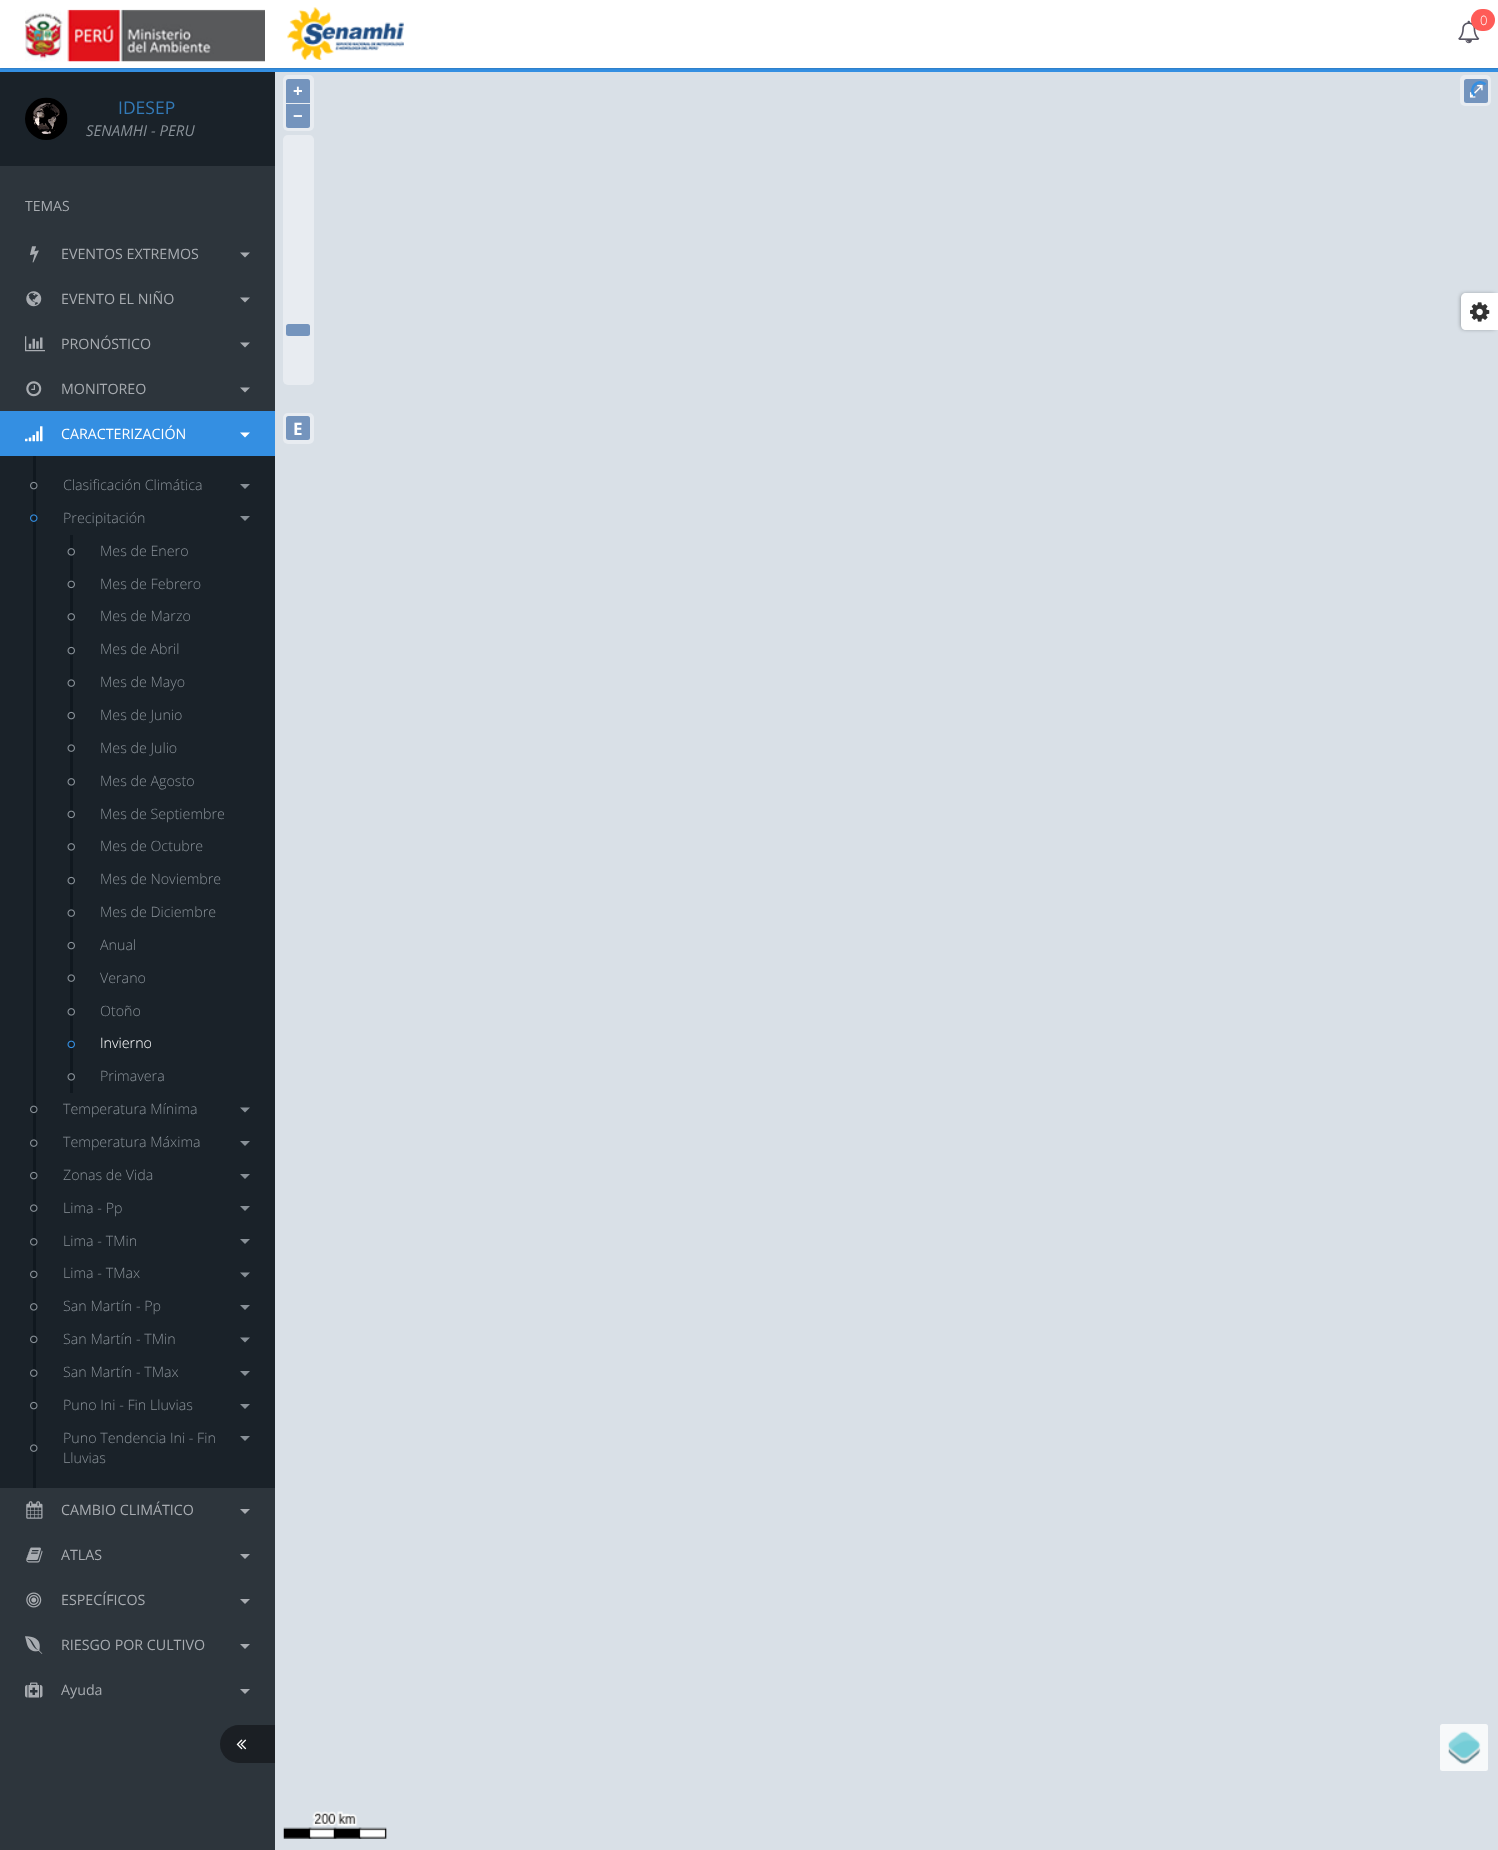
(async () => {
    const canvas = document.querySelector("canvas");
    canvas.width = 1498;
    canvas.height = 1850;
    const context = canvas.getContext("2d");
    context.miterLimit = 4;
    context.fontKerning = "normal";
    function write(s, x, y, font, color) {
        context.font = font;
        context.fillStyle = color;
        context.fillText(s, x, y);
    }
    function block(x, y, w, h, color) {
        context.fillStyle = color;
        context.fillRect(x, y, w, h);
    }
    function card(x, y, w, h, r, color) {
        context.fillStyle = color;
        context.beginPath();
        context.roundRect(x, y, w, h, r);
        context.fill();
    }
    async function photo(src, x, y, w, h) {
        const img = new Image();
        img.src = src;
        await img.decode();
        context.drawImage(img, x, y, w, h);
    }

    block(0, 0, 1498, 1850, "rgb(217, 224, 231)");
    block(0, 68, 1498, 4, "rgb(52, 143, 226)");
    context.fillStyle = "rgba(0, 0, 0, 0.3)";
    context.filter = "blur(1px)";
    context.beginPath();
    context.rect(0, 0, 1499, 68);
    context.fill();
    context.filter = "none";
    block(0, 0, 1498, 68, "rgb(255, 255, 255)");
    await photo("media/1.png", 25, 9, 240, 53);
    await photo("media/2.png", 287, 7, 117, 53);
    await photo("media/3.png", 1458, 20, 22, 24);
    card(1471, 9, 24, 22, 11, "rgb(255, 91, 87)");
    write("0", 1480, 25, "300 13px Open Sans", "rgb(255, 255, 255)");
    block(0, 72, 275, 94, "rgb(26, 34, 41)");
    await photo("media/4.png", 25, 97, 43, 43);
    write("IDESEP", 118, 114, "17.5px Open Sans", "rgb(51, 122, 183)");
    write("SENAMHI - PERU", 86, 136, "italic 15px Open Sans", "rgb(136, 144, 151)");
    block(0, 166, 275, 1684, "rgb(45, 53, 60)");
    write("TEMAS", 25, 211, "14px Open Sans", "rgb(168, 172, 177)");
    await photo("media/5.png", 30, 246, 9, 17);
    write("EVENTOS EXTREMOS", 61, 259, "14.25px Open Sans", "rgb(168, 172, 177)");
    context.beginPath();
    context.moveTo(240, 252.5);
    context.lineTo(250, 252.5);
    context.lineTo(245, 257.5);
    context.closePath();
    context.fill();
    await photo("media/6.png", 26, 291, 16, 16);
    write("EVENTO EL NIÑO", 61, 304, "14.25px Open Sans", "rgb(168, 172, 177)");
    context.beginPath();
    context.moveTo(240, 297.5);
    context.lineTo(250, 297.5);
    context.lineTo(245, 302.5);
    context.closePath();
    context.fill();
    await photo("media/7.png", 25, 336, 20, 16);
    write("PRONÓSTICO", 61, 349, "14.25px Open Sans", "rgb(168, 172, 177)");
    context.beginPath();
    context.moveTo(240, 342.5);
    context.lineTo(250, 342.5);
    context.lineTo(245, 347.5);
    context.closePath();
    context.fill();
    await photo("media/8.png", 26, 381, 16, 16);
    write("MONITOREO", 61, 394, "14.25px Open Sans", "rgb(168, 172, 177)");
    context.beginPath();
    context.moveTo(240, 387.5);
    context.lineTo(250, 387.5);
    context.lineTo(245, 392.5);
    context.closePath();
    context.fill();
    block(0, 411, 275, 45, "rgb(52, 143, 226)");
    await photo("media/9.png", 25, 426, 18, 16);
    write("CARACTERIZACIÓN", 61, 439, "14.25px Open Sans", "rgb(255, 255, 255)");
    context.beginPath();
    context.moveTo(240, 432.5);
    context.lineTo(250, 432.5);
    context.lineTo(245, 437.5);
    context.closePath();
    context.fill();
    block(0, 456, 275, 1032, "rgb(26, 34, 41)");
    block(33, 456, 3, 1032, "rgb(16, 24, 31)");
    await photo("media/10.png", 30, 481, 8, 9);
    write("Clasificación Climática", 63, 490, "300 14.25px Open Sans", "rgb(136, 144, 151)");
    context.beginPath();
    context.moveTo(240, 484);
    context.lineTo(250, 484);
    context.lineTo(245, 489);
    context.closePath();
    context.fill();
    await photo("media/11.png", 30, 514, 8, 8);
    write("Precipitación", 63, 523, "300 14.25px Open Sans", "rgb(136, 144, 151)");
    context.beginPath();
    context.moveTo(240, 516);
    context.lineTo(250, 516);
    context.lineTo(245, 521);
    context.closePath();
    context.fill();
    block(70, 535, 3, 558, "rgb(16, 24, 31)");
    await photo("media/12.png", 67, 548, 8, 8);
    write("Mes de Enero", 100, 556, "300 14.25px Open Sans", "rgb(136, 144, 151)");
    await photo("media/13.png", 67, 580, 8, 9);
    write("Mes de Febrero", 100, 589, "300 14.25px Open Sans", "rgb(136, 144, 151)");
    await photo("media/12.png", 67, 613, 8, 8);
    write("Mes de Marzo", 100, 621, "300 14.25px Open Sans", "rgb(136, 144, 151)");
    await photo("media/14.png", 67, 646, 8, 9);
    write("Mes de Abril", 100, 654, "300 14.25px Open Sans", "rgb(136, 144, 151)");
    await photo("media/15.png", 67, 679, 8, 8);
    write("Mes de Mayo", 100, 687, "300 14.25px Open Sans", "rgb(136, 144, 151)");
    await photo("media/14.png", 67, 711, 8, 9);
    write("Mes de Junio", 100, 720, "300 14.25px Open Sans", "rgb(136, 144, 151)");
    await photo("media/15.png", 67, 744, 8, 8);
    write("Mes de Julio", 100, 753, "300 14.25px Open Sans", "rgb(136, 144, 151)");
    await photo("media/12.png", 67, 778, 8, 8);
    write("Mes de Agosto", 100, 786, "300 14.25px Open Sans", "rgb(136, 144, 151)");
    await photo("media/13.png", 67, 810, 8, 9);
    write("Mes de Septiembre", 100, 819, "300 14.25px Open Sans", "rgb(136, 144, 151)");
    await photo("media/12.png", 67, 843, 8, 8);
    write("Mes de Octubre", 100, 851, "300 14.25px Open Sans", "rgb(136, 144, 151)");
    await photo("media/14.png", 67, 876, 8, 9);
    write("Mes de Noviembre", 100, 884, "300 14.25px Open Sans", "rgb(136, 144, 151)");
    await photo("media/15.png", 67, 909, 8, 8);
    write("Mes de Diciembre", 100, 917, "300 14.25px Open Sans", "rgb(136, 144, 151)");
    await photo("media/14.png", 67, 941, 8, 9);
    write("Anual", 100, 950, "300 14.25px Open Sans", "rgb(136, 144, 151)");
    await photo("media/15.png", 67, 974, 8, 8);
    write("Verano", 100, 983, "300 14.25px Open Sans", "rgb(136, 144, 151)");
    await photo("media/12.png", 67, 1008, 8, 8);
    write("Otoño", 100, 1016, "300 14.25px Open Sans", "rgb(136, 144, 151)");
    await photo("media/16.png", 67, 1040, 8, 9);
    write("Invierno", 100, 1048, "300 14.25px Open Sans", "rgb(255, 255, 255)");
    await photo("media/12.png", 67, 1073, 8, 8);
    write("Primavera", 100, 1081, "300 14.25px Open Sans", "rgb(136, 144, 151)");
    await photo("media/17.png", 30, 1105, 8, 9);
    write("Temperatura Mínima", 63, 1114, "300 14.25px Open Sans", "rgb(136, 144, 151)");
    context.beginPath();
    context.moveTo(240, 1107.5);
    context.lineTo(250, 1107.5);
    context.lineTo(245, 1112.5);
    context.closePath();
    context.fill();
    await photo("media/18.png", 30, 1139, 8, 8);
    write("Temperatura Máxima", 63, 1147, "300 14.25px Open Sans", "rgb(136, 144, 151)");
    context.beginPath();
    context.moveTo(240, 1141);
    context.lineTo(250, 1141);
    context.lineTo(245, 1146);
    context.closePath();
    context.fill();
    await photo("media/10.png", 30, 1171, 8, 9);
    write("Zonas de Vida", 63, 1180, "300 14.25px Open Sans", "rgb(136, 144, 151)");
    context.beginPath();
    context.moveTo(240, 1174);
    context.lineTo(250, 1174);
    context.lineTo(245, 1179);
    context.closePath();
    context.fill();
    await photo("media/18.png", 30, 1204, 8, 8);
    write("Lima - Pp", 63, 1213, "300 14.25px Open Sans", "rgb(136, 144, 151)");
    context.beginPath();
    context.moveTo(240, 1206);
    context.lineTo(250, 1206);
    context.lineTo(245, 1211);
    context.closePath();
    context.fill();
    await photo("media/19.png", 30, 1238, 8, 8);
    write("Lima - TMin", 63, 1246, "300 14.25px Open Sans", "rgb(136, 144, 151)");
    context.beginPath();
    context.moveTo(240, 1239);
    context.lineTo(250, 1239);
    context.lineTo(245, 1244);
    context.closePath();
    context.fill();
    await photo("media/17.png", 30, 1270, 8, 9);
    write("Lima - TMax", 63, 1278, "300 14.25px Open Sans", "rgb(136, 144, 151)");
    context.beginPath();
    context.moveTo(240, 1272.5);
    context.lineTo(250, 1272.5);
    context.lineTo(245, 1277.5);
    context.closePath();
    context.fill();
    await photo("media/19.png", 30, 1303, 8, 8);
    write("San Martín - Pp", 63, 1311, "300 14.25px Open Sans", "rgb(136, 144, 151)");
    context.beginPath();
    context.moveTo(240, 1305);
    context.lineTo(250, 1305);
    context.lineTo(245, 1310);
    context.closePath();
    context.fill();
    await photo("media/17.png", 30, 1335, 8, 9);
    write("San Martín - TMin", 63, 1344, "300 14.25px Open Sans", "rgb(136, 144, 151)");
    context.beginPath();
    context.moveTo(240, 1337.5);
    context.lineTo(250, 1337.5);
    context.lineTo(245, 1342.5);
    context.closePath();
    context.fill();
    await photo("media/18.png", 30, 1369, 8, 8);
    write("San Martín - TMax", 63, 1377, "300 14.25px Open Sans", "rgb(136, 144, 151)");
    context.beginPath();
    context.moveTo(240, 1371);
    context.lineTo(250, 1371);
    context.lineTo(245, 1376);
    context.closePath();
    context.fill();
    await photo("media/10.png", 30, 1401, 8, 9);
    write("Puno Ini - Fin Lluvias", 63, 1410, "300 14.25px Open Sans", "rgb(136, 144, 151)");
    context.beginPath();
    context.moveTo(240, 1404);
    context.lineTo(250, 1404);
    context.lineTo(245, 1409);
    context.closePath();
    context.fill();
    write("Puno Tendencia Ini - Fin", 63, 1443, "300 14.25px Open Sans", "rgb(136, 144, 151)");
    context.beginPath();
    context.moveTo(240, 1436);
    context.lineTo(250, 1436);
    context.lineTo(245, 1441);
    context.closePath();
    context.fill();
    await photo("media/18.png", 30, 1444, 8, 8);
    write("Lluvias", 63, 1463, "300 14.25px Open Sans", "rgb(136, 144, 151)");
    await photo("media/20.png", 26, 1501, 17, 18);
    write("CAMBIO CLIMÁTICO", 61, 1515, "14.25px Open Sans", "rgb(168, 172, 177)");
    context.beginPath();
    context.moveTo(240, 1509);
    context.lineTo(250, 1509);
    context.lineTo(245, 1514);
    context.closePath();
    context.fill();
    await photo("media/21.png", 26, 1547, 17, 16);
    write("ATLAS", 61, 1560, "14.25px Open Sans", "rgb(168, 172, 177)");
    context.beginPath();
    context.moveTo(240, 1554);
    context.lineTo(250, 1554);
    context.lineTo(245, 1559);
    context.closePath();
    context.fill();
    await photo("media/22.png", 26, 1592, 16, 16);
    write("ESPECÍFICOS", 61, 1605, "14.25px Open Sans", "rgb(168, 172, 177)");
    context.beginPath();
    context.moveTo(240, 1599);
    context.lineTo(250, 1599);
    context.lineTo(245, 1604);
    context.closePath();
    context.fill();
    await photo("media/23.png", 25, 1636, 18, 18);
    write("RIESGO POR CULTIVO", 61, 1650, "14.25px Open Sans", "rgb(168, 172, 177)");
    context.beginPath();
    context.moveTo(240, 1644);
    context.lineTo(250, 1644);
    context.lineTo(245, 1649);
    context.closePath();
    context.fill();
    await photo("media/24.png", 25, 1682, 18, 16);
    write("Ayuda", 61, 1695, "14.25px Open Sans", "rgb(168, 172, 177)");
    context.beginPath();
    context.moveTo(240, 1689);
    context.lineTo(250, 1689);
    context.lineTo(245, 1694);
    context.closePath();
    context.fill();
    context.fillStyle = "rgb(27, 31, 36)";
    context.beginPath();
    context.roundRect(220, 1725, 55, 38, [19, 0, 0, 19]);
    context.fill();
    await photo("media/25.png", 236, 1739, 11, 11);
    card(283, 75, 31, 56, 5, "rgb(232, 236, 241)");
    context.fillStyle = "rgb(116, 148, 189)";
    context.beginPath();
    context.roundRect(286, 79, 24, 24, [2.5, 2.5, 0, 0]);
    context.fill();
    write("+", 293, 97, "bold 17px Open Sans", "rgb(255, 255, 255)");
    context.fillStyle = "rgb(116, 148, 189)";
    context.beginPath();
    context.roundRect(286, 104, 24, 24, [0, 0, 2.5, 2.5]);
    context.fill();
    write("−", 293, 122, "bold 17px Open Sans", "rgb(255, 255, 255)");
    card(1460, 75, 31, 31, 5, "rgb(232, 236, 241)");
    card(1464, 79, 24, 24, 2.5, "rgb(116, 148, 189)");
    write("⤢", 1469, 97, "bold 17px FreeSerif", "rgb(255, 255, 255)");
    card(283, 135, 31, 250, 5, "rgb(232, 236, 241)");
    card(286, 324, 24, 12, 2.5, "rgb(116, 148, 189)");
    card(283, 413, 31, 31, 5, "rgb(232, 236, 241)");
    card(286, 416, 24, 24, 2.5, "rgb(116, 148, 189)");
    write("E", 293, 435, "bold 17px Open Sans", "rgb(255, 255, 255)");
    card(1440, 1724, 48, 47, 2.5, "rgb(247, 249, 250)");
    await photo("media/26.png", 1448, 1731, 33, 34);
    await photo("media/27.png", 283, 1811, 104, 28);
    context.fillStyle = "rgba(0, 0, 0, 0.4)";
    context.filter = "blur(2px)";
    context.beginPath();
    context.roundRect(1461, 294, 35, 35, 4);
    context.fill();
    context.filter = "none";
    context.fillStyle = "rgb(255, 255, 255)";
    context.beginPath();
    context.moveTo(1466, 293);
    context.lineTo(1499, 293);
    context.lineTo(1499, 330);
    context.lineTo(1466, 330);
    context.bezierCurveTo(1463, 330, 1461, 328, 1461, 325);
    context.lineTo(1461, 298);
    context.bezierCurveTo(1461, 295, 1463, 293, 1466, 293);
    context.closePath();
    context.fill();
    await photo("media/28.png", 1470, 302, 20, 20);
    context.beginPath();
    context.moveTo(1474.5, 95.5);
    context.bezierCurveTo(1467.5, 88.5, 1478.5, 77.5, 1485.5, 84.5);
    context.strokeStyle = "rgb(52, 143, 226)";
    context.lineWidth = 2.5;
    context.stroke();
})();
